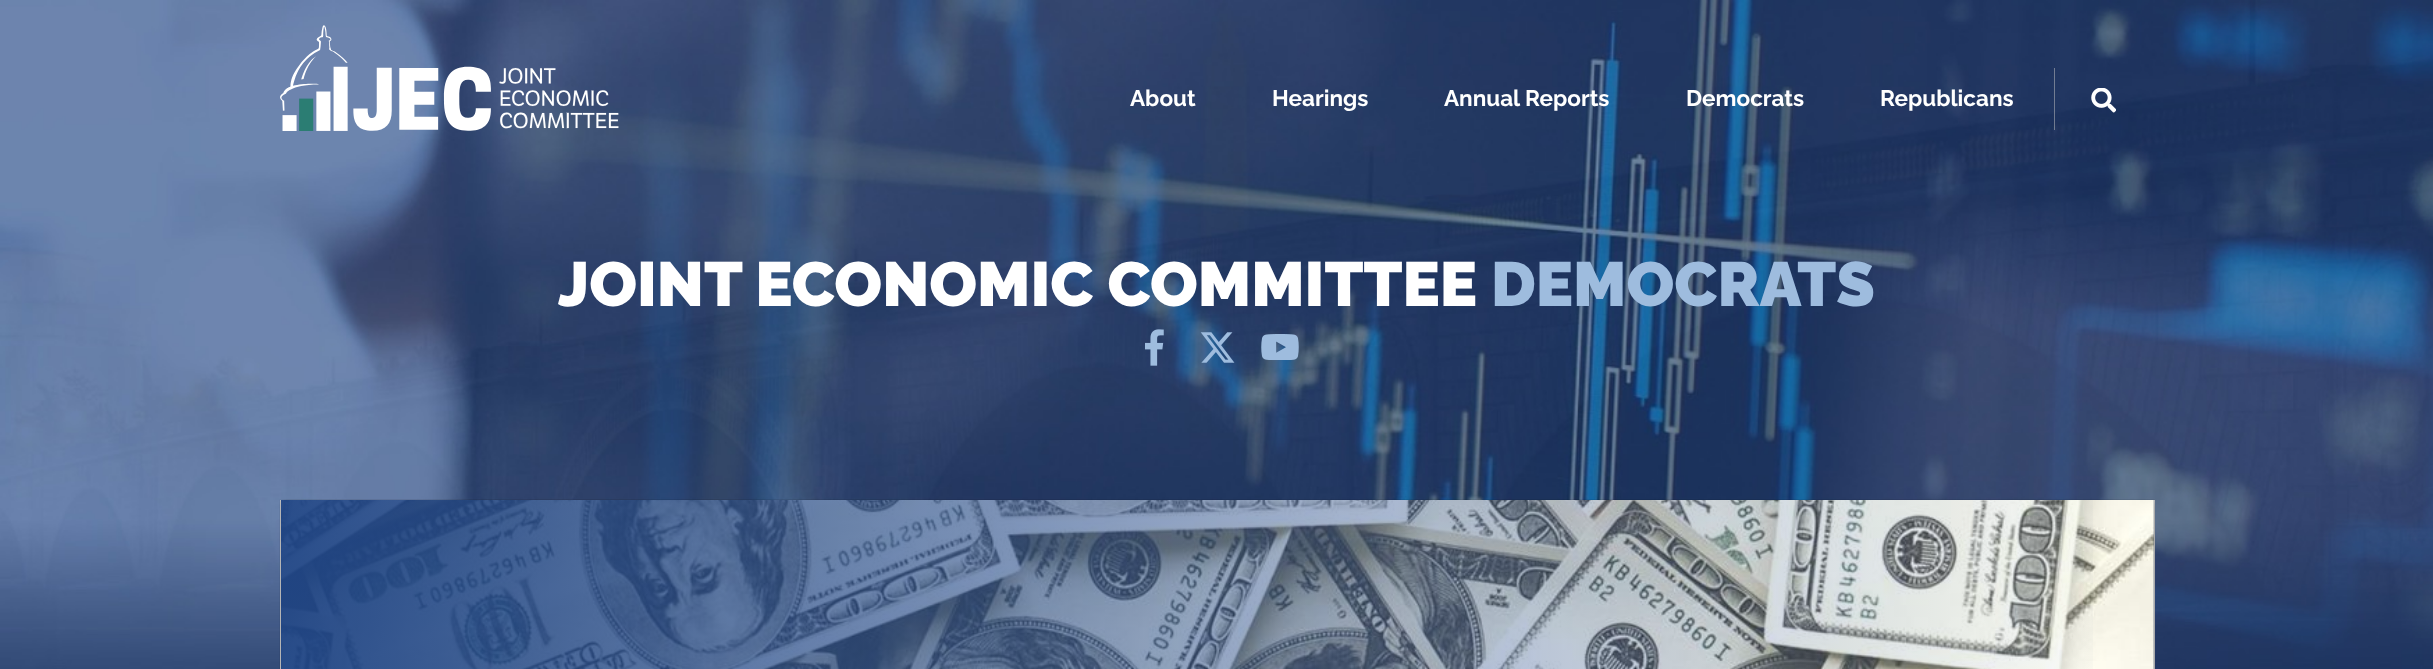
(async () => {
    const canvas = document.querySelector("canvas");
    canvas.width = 2433;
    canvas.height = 669;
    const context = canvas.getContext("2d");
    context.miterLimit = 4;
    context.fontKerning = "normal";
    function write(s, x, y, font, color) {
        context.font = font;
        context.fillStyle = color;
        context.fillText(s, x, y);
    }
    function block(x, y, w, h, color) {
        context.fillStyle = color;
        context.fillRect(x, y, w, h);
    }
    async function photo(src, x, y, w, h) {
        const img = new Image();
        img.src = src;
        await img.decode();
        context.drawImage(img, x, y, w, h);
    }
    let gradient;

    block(0, 0, 2433, 669, "rgb(255, 255, 255)");
    await photo("media/1.png", 0, 0, 2433, 669);
    await photo("media/2.png", 280, 25, 339, 106);
    write("About", 1130, 106, "bold 22.5px Raleway", "rgb(255, 255, 255)");
    write("Hearings", 1272, 106, "bold 22.5px Raleway", "rgb(255, 255, 255)");
    write("Annual Reports", 1444, 106, "bold 22.5px Raleway", "rgb(255, 255, 255)");
    write("Democrats", 1686, 106, "bold 22.5px Raleway", "rgb(255, 255, 255)");
    write("Republicans", 1880, 106, "bold 22.5px Raleway", "rgb(255, 255, 255)");
    block(2054, 68, 1, 62, "rgba(196, 196, 196, 0.5)");
    await photo("media/3.png", 2091, 88, 25, 25);
    write("JOINT ECONOMIC COMMITTEE", 558, 306, "900 62.5px Raleway", "rgb(255, 255, 255)");
    write("DEMOCRATS", 1491, 306, "900 62.5px Raleway", "rgb(158, 188, 222)");
    await photo("media/4.png", 1145, 329, 19, 37);
    await photo("media/5.png", 1200, 332, 35, 31);
    await photo("media/6.png", 1261, 334, 38, 26);
    block(2154, 500, 1, 169, "rgb(196, 196, 196)");
    block(280, 500, 1, 169, "rgb(196, 196, 196)");
    await photo("media/7.png", 279, 499, 1876, 170);
    gradient = context.createLinearGradient(281, 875, 2154, 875);
    gradient.addColorStop(0, "rgba(30, 68, 133, 0.95)");
    gradient.addColorStop(0.99, "rgba(30, 68, 133, 0)");
    context.fillStyle = gradient;
    context.fillRect(281, 500, 1812, 169);
})();
